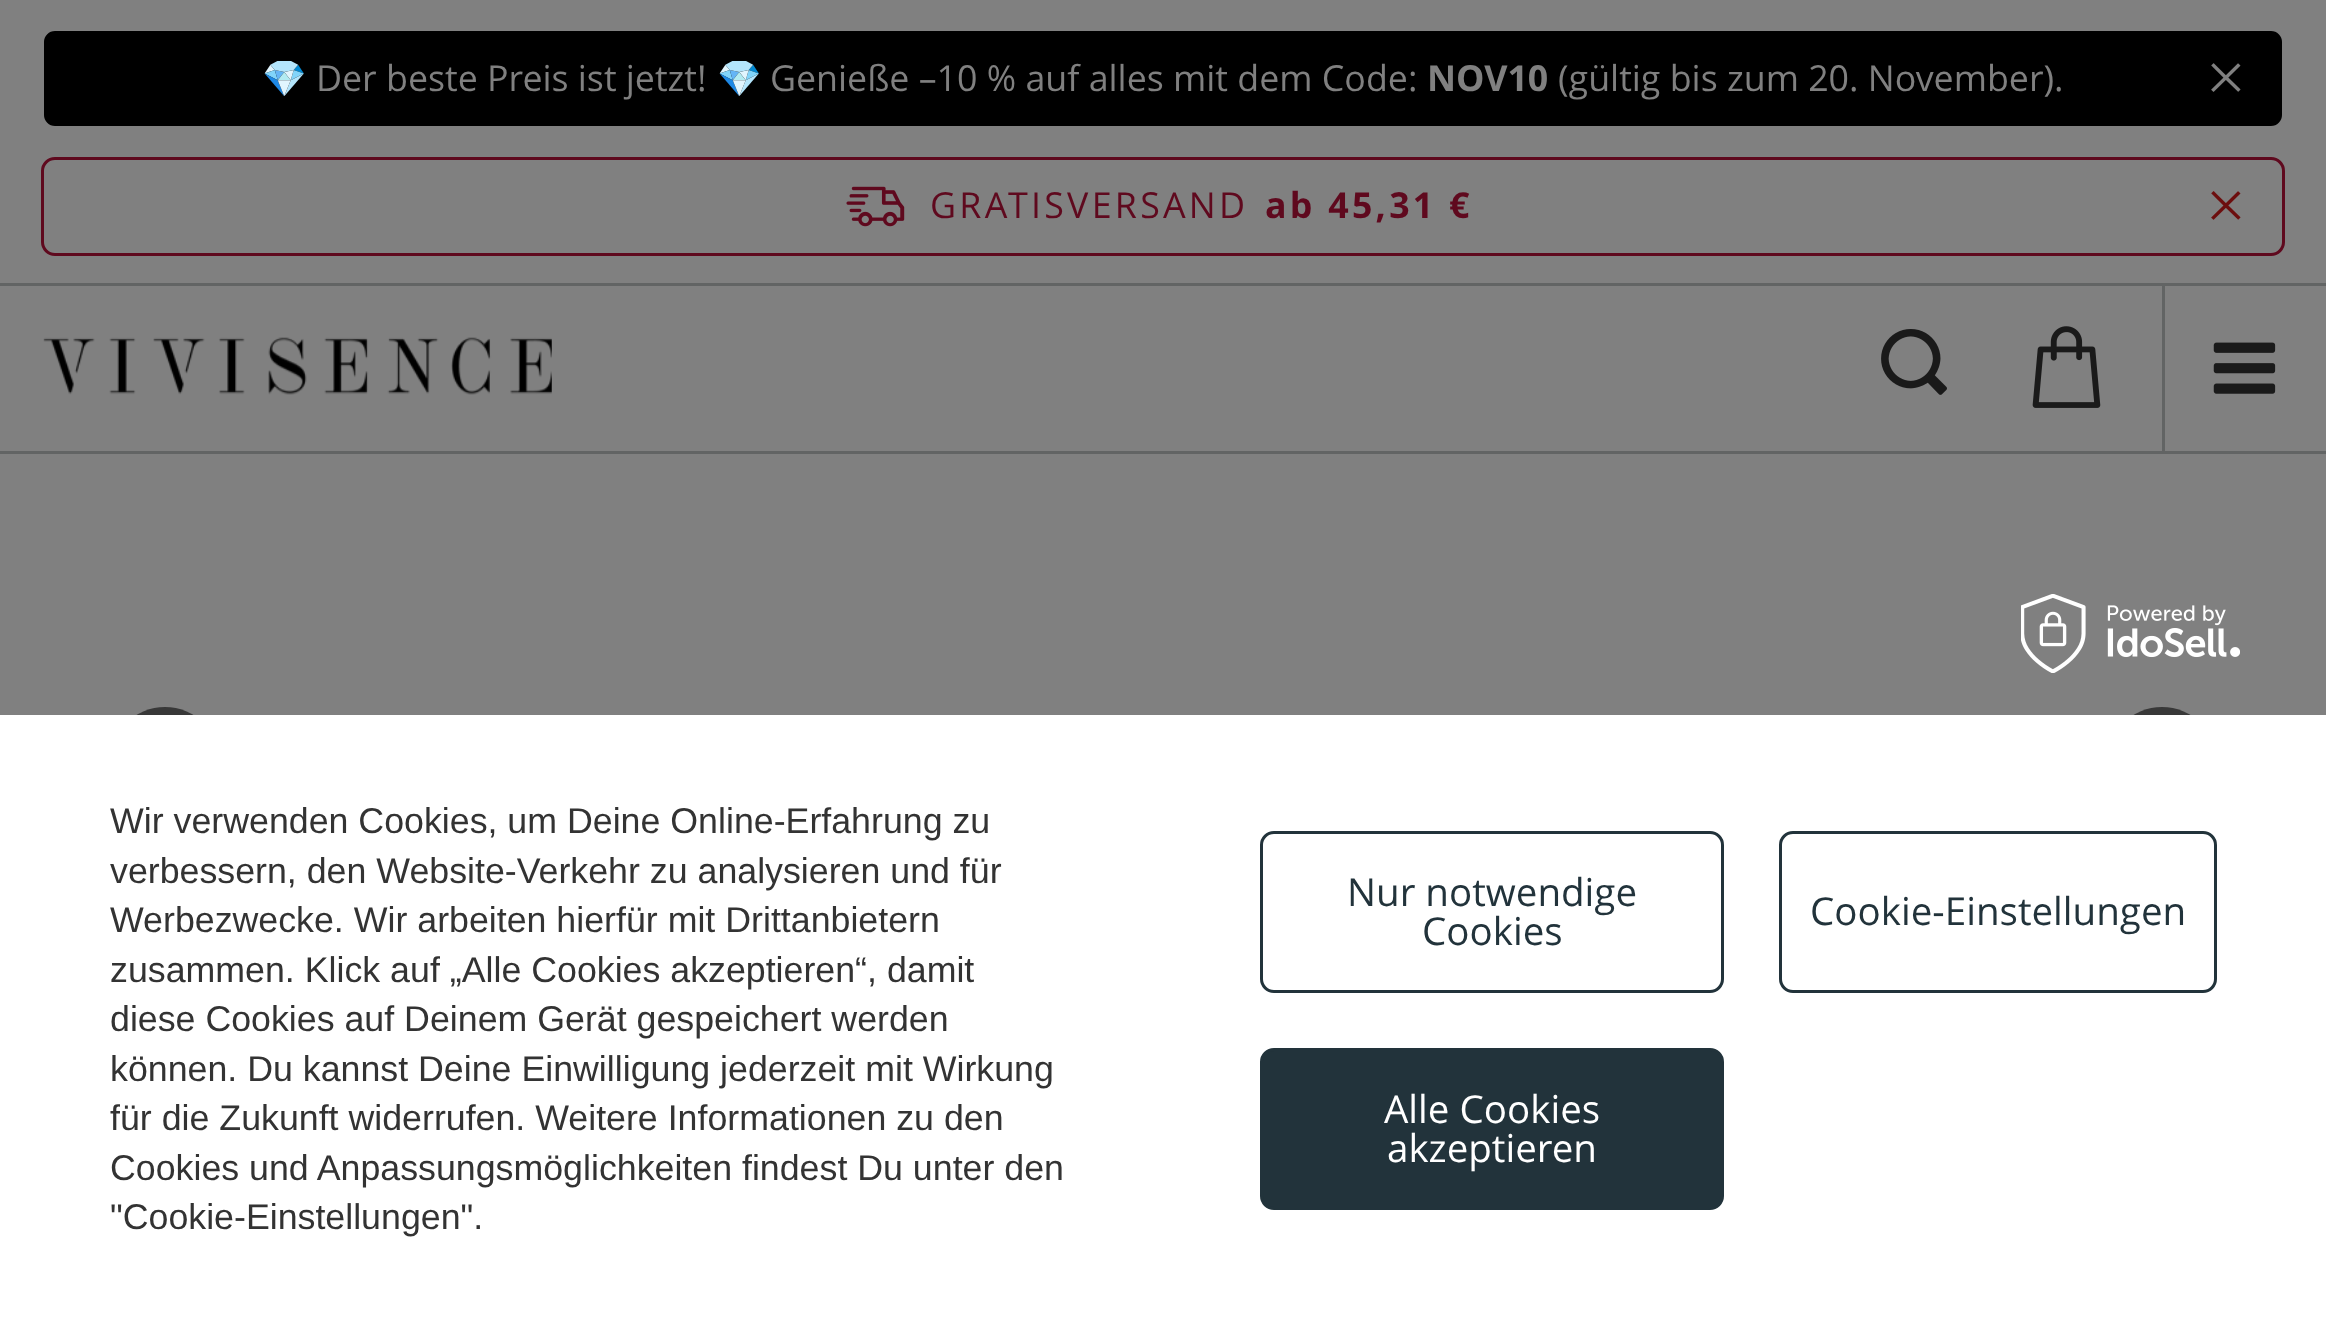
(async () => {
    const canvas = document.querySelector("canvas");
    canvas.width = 2326;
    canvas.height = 1323;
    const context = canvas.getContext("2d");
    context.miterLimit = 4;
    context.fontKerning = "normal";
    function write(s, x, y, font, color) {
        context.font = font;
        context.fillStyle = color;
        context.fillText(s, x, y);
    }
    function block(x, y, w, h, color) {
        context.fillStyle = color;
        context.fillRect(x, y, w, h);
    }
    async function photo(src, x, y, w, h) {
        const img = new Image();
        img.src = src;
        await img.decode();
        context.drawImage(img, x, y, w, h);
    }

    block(0, 0, 2326, 1323, "rgb(128, 128, 128)");
    block(0, 451, 2326, 3, "rgb(98, 100, 100)");
    context.fillStyle = "rgb(0, 0, 0)";
    context.beginPath();
    context.roundRect(42.5, 29.5, 2241, 98, 12.5);
    context.fill();
    context.strokeStyle = "rgb(128, 128, 128)";
    context.lineWidth = 3;
    context.stroke();
    write("💎", 262, 91, "35.75px Noto Color Emoji", "rgb(128, 128, 128)");
    write("Der beste Preis ist jetzt!", 316, 91, "35.75px Open Sans", "rgb(128, 128, 128)");
    write("💎", 717, 91, "35.75px Noto Color Emoji", "rgb(128, 128, 128)");
    write("Genieße –10 % auf alles mit dem Code:", 770, 91, "35.75px Open Sans", "rgb(128, 128, 128)");
    write("NOV10", 1427, 91, "bold 35.75px Open Sans", "rgb(128, 128, 128)");
    write("(gültig bis zum 20. November).", 1558, 91, "35.75px Open Sans", "rgb(128, 128, 128)");
    await photo("media/1.png", 2211, 63, 30, 29);
    context.beginPath();
    context.roundRect(42.5, 158.5, 2241, 96, 12.5);
    context.strokeStyle = "rgb(95, 9, 30)";
    context.stroke();
    await photo("media/2.png", 846, 186, 59, 41);
    context.letterSpacing = "3.25px";
    write("GRATISVERSAND", 930, 218, "35.75px Open Sans", "rgb(95, 9, 30)");
    write("ab 45,31 €", 1265, 218, "bold 35.75px Open Sans", "rgb(95, 9, 30)");
    await photo("media/3.png", 2211, 191, 30, 29);
    block(2162, 283, 3, 168, "rgb(98, 100, 100)");
    block(0, 283, 2326, 3, "rgb(98, 100, 100)");
    await photo("media/4.png", 43, 337, 509, 58);
    await photo("media/5.png", 1881, 329, 66, 66);
    await photo("media/6.png", 2032, 326, 69, 82);
    await photo("media/7.png", 2213, 342, 63, 52);
    context.fillStyle = "rgb(56, 56, 56)";
    context.beginPath();
    context.arc(165, 762, 55, 0, Math.PI * 2);
    context.fill();
    context.beginPath();
    context.arc(2162, 762, 55, 0, Math.PI * 2);
    context.fill();
    block(0, 715, 2326, 608, "rgb(255, 255, 255)");
    await photo("media/8.png", 2021, 594, 219, 79);
    context.letterSpacing = "0px";
    write("Wir verwenden Cookies, um Deine Online-Erfahrung zu", 110, 833, "35.75px Liberation Sans", "rgb(51, 51, 51)");
    write("verbessern, den Website-Verkehr zu analysieren und für", 110, 883, "35.75px Liberation Sans", "rgb(51, 51, 51)");
    write("Werbezwecke. Wir arbeiten hierfür mit Drittanbietern", 110, 932, "35.75px Liberation Sans", "rgb(51, 51, 51)");
    write("zusammen. Klick auf „Alle Cookies akzeptieren“, damit", 110, 982, "35.75px Liberation Sans", "rgb(51, 51, 51)");
    write("diese Cookies auf Deinem Gerät gespeichert werden", 110, 1031, "35.75px Liberation Sans", "rgb(51, 51, 51)");
    write("können. Du kannst Deine Einwilligung jederzeit mit Wirkung", 110, 1081, "35.75px Liberation Sans", "rgb(51, 51, 51)");
    write("für die Zukunft widerrufen. Weitere Informationen zu den", 110, 1130, "35.75px Liberation Sans", "rgb(51, 51, 51)");
    write("Cookies und Anpassungsmöglichkeiten findest Du unter den", 110, 1180, "35.75px Liberation Sans", "rgb(51, 51, 51)");
    write("\"Cookie-Einstellungen\".", 110, 1229, "35.75px Liberation Sans", "rgb(51, 51, 51)");
    context.beginPath();
    context.roundRect(1261.5, 832.5, 461, 159, 12.5);
    context.strokeStyle = "rgb(34, 51, 59)";
    context.stroke();
    write("Nur notwendige", 1347, 906, "38.5px Open Sans", "rgb(34, 51, 59)");
    write("Cookies", 1422, 945, "38.5px Open Sans", "rgb(34, 51, 59)");
    context.beginPath();
    context.roundRect(1780.5, 832.5, 435, 159, 12.5);
    context.stroke();
    write("Cookie-Einstellungen", 1810, 925, "38.5px Open Sans", "rgb(34, 51, 59)");
    context.beginPath();
    context.roundRect(1261.5, 1049.5, 461, 159, 12.5);
    context.fill();
    context.stroke();
    write("Alle Cookies", 1384, 1123, "38.5px Open Sans", "rgb(255, 255, 255)");
    write("akzeptieren", 1387, 1162, "38.5px Open Sans", "rgb(255, 255, 255)");
})();
